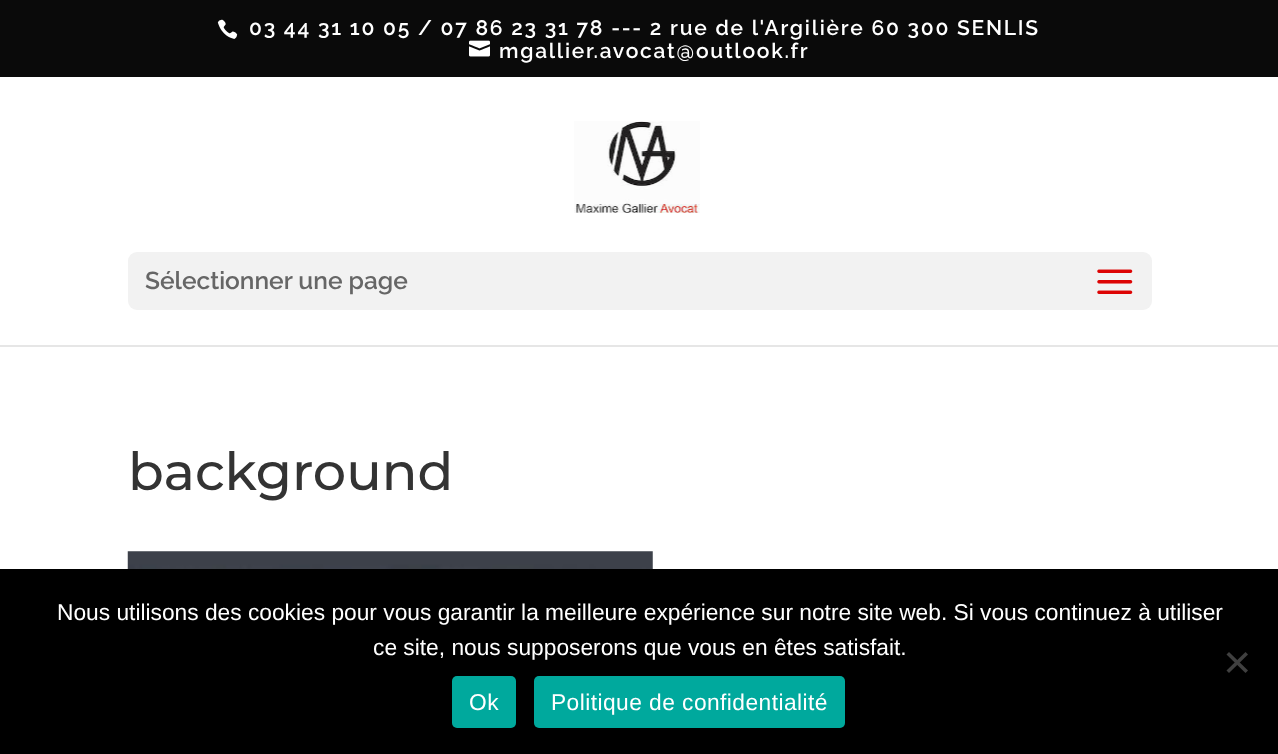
(async () => {
    const canvas = document.querySelector("canvas");
    canvas.width = 1278;
    canvas.height = 754;
    const context = canvas.getContext("2d");
    context.miterLimit = 4;
    context.fontKerning = "normal";
    function write(s, x, y, font, color) {
        context.font = font;
        context.fillStyle = color;
        context.fillText(s, x, y);
    }
    function block(x, y, w, h, color) {
        context.fillStyle = color;
        context.fillRect(x, y, w, h);
    }
    function card(x, y, w, h, r, color) {
        context.fillStyle = color;
        context.beginPath();
        context.roundRect(x, y, w, h, r);
        context.fill();
    }
    async function photo(src, x, y, w, h) {
        const img = new Image();
        img.src = src;
        await img.decode();
        context.drawImage(img, x, y, w, h);
    }

    block(0, 0, 1278, 754, "rgb(255, 255, 255)");
    block(0, 0, 1278, 77, "rgb(10, 10, 10)");
    await photo("media/1.png", 217, 19, 21, 20);
    context.letterSpacing = "1.75px";
    write("03 44 31 10 05 / 07 86 23 31 78 --- 2 rue de l'Argilière 60 300 SENLIS", 249, 35, "600 21px Raleway", "rgb(255, 255, 255)");
    await photo("media/2.png", 469, 40, 21, 17);
    write("mgallier.avocat@outlook.fr", 499, 58, "600 21px Raleway", "rgb(255, 255, 255)");
    block(0, 345, 1278, 2, "rgb(230, 230, 230)");
    await photo("media/3.png", 574, 121, 126, 92);
    card(128, 252, 1024, 58, 9, "rgb(242, 242, 242)");
    context.letterSpacing = "0px";
    write("Sélectionner une page", 145, 289, "600 24.5px Raleway", "rgb(102, 102, 102)");
    await photo("media/4.png", 1097, 269, 36, 25);
    write("background", 128, 490, "500 52.5px Montserrat", "rgb(51, 51, 51)");
    await photo("media/5.png", 127, 551, 526, 18);
    block(0, 569, 1278, 185, "rgb(0, 0, 0)");
    write("Nous utilisons des cookies pour vous garantir la meilleure expérience sur notre site web. Si vous continuez à utiliser", 57, 620, "22.75px Liberation Sans", "rgb(255, 255, 255)");
    write("ce site, nous supposerons que vous en êtes satisfait.", 373, 655, "22.75px Liberation Sans", "rgb(255, 255, 255)");
    context.fillStyle = "rgb(64, 64, 64)";
    context.beginPath();
    context.moveTo(1245.5, 652);
    context.lineTo(1248, 654.5);
    context.lineTo(1229, 673);
    context.lineTo(1226.5, 670.5);
    context.closePath();
    context.fill();
    context.beginPath();
    context.moveTo(1226.5, 654.5);
    context.lineTo(1229, 652);
    context.lineTo(1248, 670.5);
    context.lineTo(1245.5, 673);
    context.closePath();
    context.fill();
    card(452, 676, 64, 52, 5, "rgb(0, 169, 157)");
    context.letterSpacing = "0.45px";
    write("Ok", 469, 710, "22.75px Liberation Sans", "rgb(255, 255, 255)");
    card(534, 676, 311, 52, 5, "rgb(0, 169, 157)");
    write("Politique de confidentialité", 551, 710, "22.75px Liberation Sans", "rgb(255, 255, 255)");
})();
